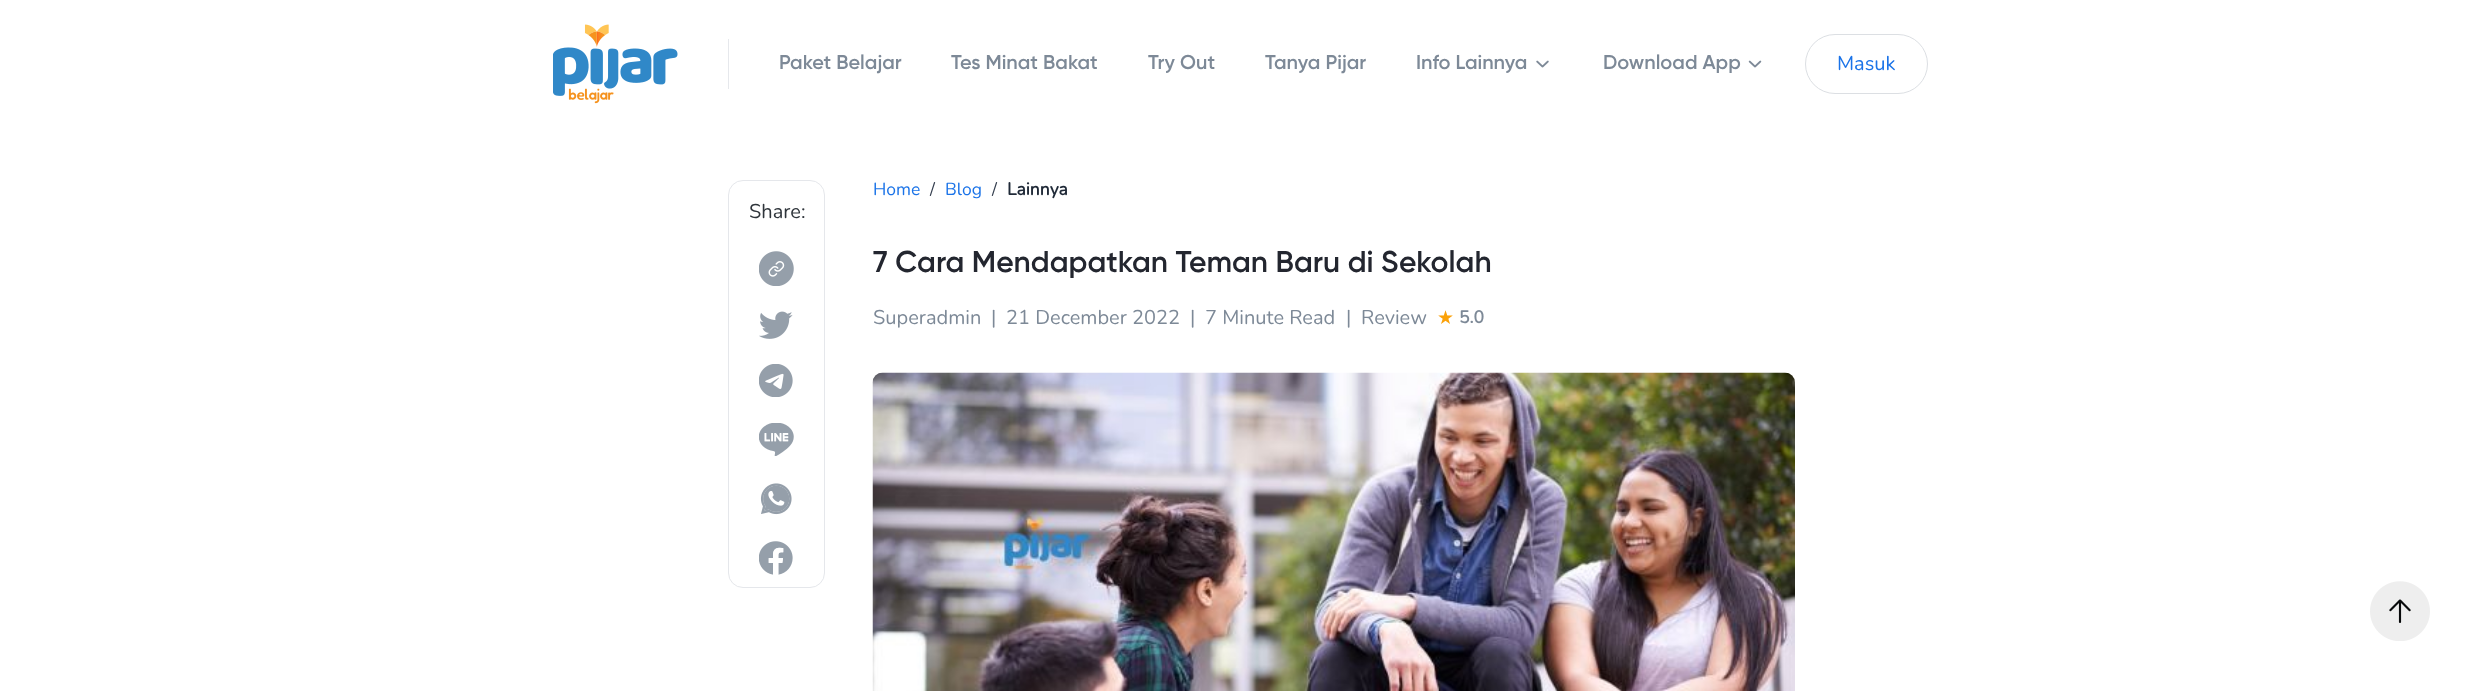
(async () => {
    const canvas = document.querySelector("canvas");
    canvas.width = 2480;
    canvas.height = 691;
    const context = canvas.getContext("2d");
    context.miterLimit = 4;
    context.fontKerning = "normal";
    function write(s, x, y, font, color) {
        context.font = font;
        context.fillStyle = color;
        context.fillText(s, x, y);
    }
    function block(x, y, w, h, color) {
        context.fillStyle = color;
        context.fillRect(x, y, w, h);
    }
    async function photo(src, x, y, w, h) {
        const img = new Image();
        img.src = src;
        await img.decode();
        context.drawImage(img, x, y, w, h);
    }

    block(0, 0, 2480, 691, "rgb(255, 255, 255)");
    await photo("media/1.png", 553, 24, 125, 80);
    block(728, 39, 1, 50, "rgb(230, 232, 236)");
    write("Paket Belajar", 779, 69, "600 20px Gilroy", "rgb(125, 137, 151)");
    write("Tes Minat Bakat", 951, 69, "600 20px Gilroy", "rgb(125, 137, 151)");
    write("Try Out", 1148, 69, "600 20px Gilroy", "rgb(125, 137, 151)");
    write("Tanya Pijar", 1265, 69, "600 20px Gilroy", "rgb(125, 137, 151)");
    write("Info Lainnya", 1416, 69, "600 20px Gilroy", "rgb(125, 137, 151)");
    await photo("media/2.png", 1536, 60, 13, 8);
    write("Download App", 1603, 69, "600 20px Gilroy", "rgb(125, 137, 151)");
    await photo("media/3.png", 1748, 60, 14, 8);
    context.beginPath();
    context.roundRect(1805.5, 34.5, 122, 59, 29.5);
    context.strokeStyle = "rgb(220, 223, 227)";
    context.stroke();
    write("Masuk", 1837, 70, "20px Nunito", "rgb(26, 115, 232)");
    context.beginPath();
    context.roundRect(728.5, 180.5, 96, 407, 14.5);
    context.strokeStyle = "rgb(229, 231, 235)";
    context.stroke();
    write("Share:", 749, 218, "20px Nunito", "rgb(47, 53, 59)");
    await photo("media/4.png", 759, 251, 35, 35);
    await photo("media/5.png", 759, 311, 34, 28);
    await photo("media/6.png", 759, 364, 34, 33);
    await photo("media/7.png", 759, 423, 35, 33);
    await photo("media/8.png", 760, 483, 32, 32);
    await photo("media/9.png", 759, 541, 34, 34);
    write("Home", 873, 195, "17.5px Nunito", "rgb(26, 115, 232)");
    write("/", 930, 195, "17.5px Nunito", "rgb(55, 65, 81)");
    write("Blog", 945, 195, "17.5px Nunito", "rgb(26, 115, 232)");
    write("/", 992, 195, "17.5px Nunito", "rgb(55, 65, 81)");
    write("Lainnya", 1007, 195, "bold 17.5px Nunito", "rgb(31, 41, 55)");
    write("7 Cara Mendapatkan Teman Baru di Sekolah", 873, 272, "600 30px Gilroy", "rgb(35, 38, 47)");
    write("Superadmin", 873, 324, "20px Nunito", "rgb(125, 137, 151)");
    write("|", 991, 324, "20px Nunito", "rgb(125, 137, 151)");
    write("21 December 2022", 1006, 324, "20px Nunito", "rgb(125, 137, 151)");
    write("|", 1190, 324, "20px Nunito", "rgb(125, 137, 151)");
    write("7 Minute Read", 1205, 324, "20px Nunito", "rgb(125, 137, 151)");
    write("|", 1346, 324, "20px Nunito", "rgb(125, 137, 151)");
    write("Review", 1361, 324, "20px Nunito", "rgb(125, 137, 151)");
    write("★", 1437, 324, "19px DejaVu Sans", "rgb(251, 162, 10)");
    write("5.0", 1459, 323, "bold 17.5px Nunito", "rgb(125, 137, 151)");
    await photo("media/10.png", 872, 372, 923, 319);
    await photo("media/11.png", 2370, 581, 60, 60);
})();
